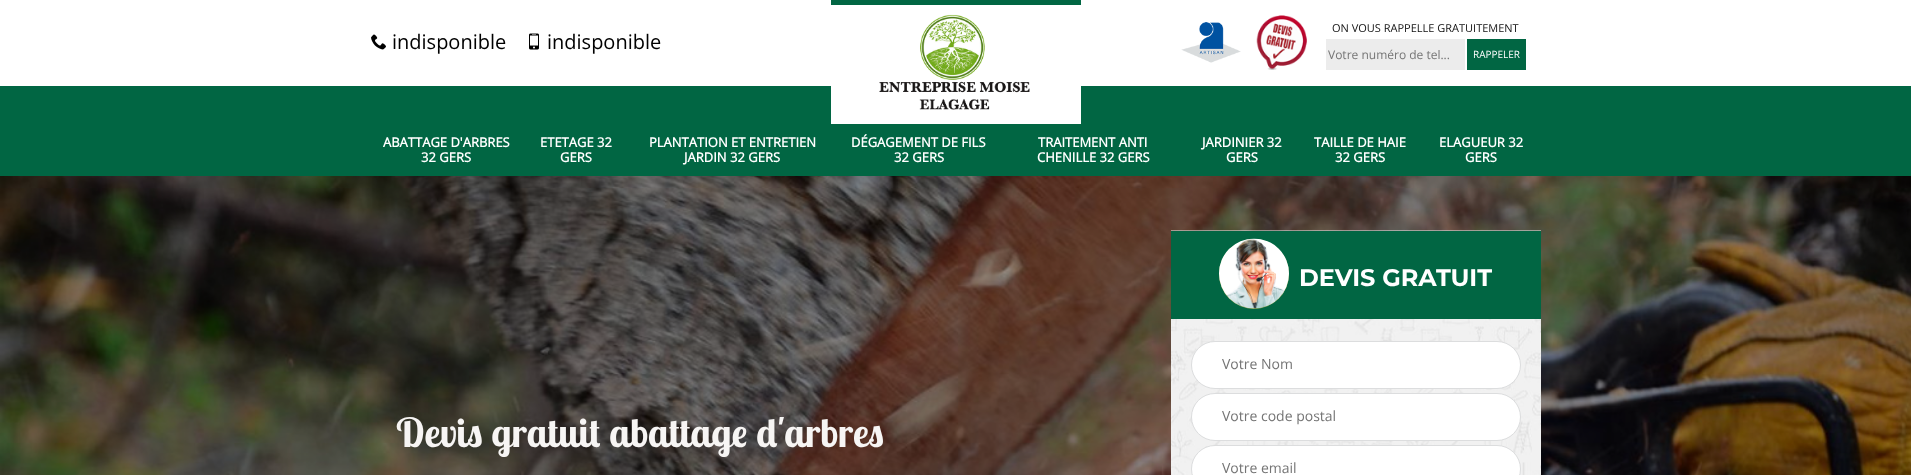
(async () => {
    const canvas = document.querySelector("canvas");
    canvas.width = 1911;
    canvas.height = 475;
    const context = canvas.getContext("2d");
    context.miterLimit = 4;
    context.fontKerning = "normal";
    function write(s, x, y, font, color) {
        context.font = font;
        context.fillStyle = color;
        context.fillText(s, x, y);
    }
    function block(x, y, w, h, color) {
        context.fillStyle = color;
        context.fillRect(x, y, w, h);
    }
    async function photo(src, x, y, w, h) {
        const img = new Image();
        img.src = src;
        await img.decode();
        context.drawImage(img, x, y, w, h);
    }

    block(0, 0, 1911, 475, "rgb(255, 255, 255)");
    await photo("media/1.png", 371, 34, 15, 16);
    write("indisponible", 392, 49, "20px Open Sans", "rgb(0, 0, 0)");
    await photo("media/2.png", 529, 33, 10, 17);
    write("indisponible", 547, 49, "20px Open Sans", "rgb(0, 0, 0)");
    block(0, 86, 1911, 90, "rgb(1, 102, 67)");
    block(831, 86, 250, 38, "rgb(255, 255, 255)");
    block(831, 0, 250, 5, "rgb(1, 102, 67)");
    await photo("media/3.png", 879, 14, 151, 96);
    await photo("media/4.png", 1181, 22, 60, 41);
    await photo("media/5.png", 1256, 15, 51, 55);
    write("ON VOUS RAPPELLE GRATUITEMENT", 1332, 32, "11px Open Sans", "rgb(17, 17, 17)");
    block(1326, 39, 139, 31, "rgb(236, 236, 236)");
    write("Votre numéro de tel...", 1328, 59, "12px Open Sans", "rgb(117, 117, 117)");
    block(1467, 39, 59, 31, "rgb(1, 102, 67)");
    write("RAPPELER", 1473, 58, "10px Open Sans", "rgb(255, 255, 255)");
    write("ABATTAGE D'ARBRES", 383, 147, "bold 13px Open Sans", "rgb(255, 255, 255)");
    write("32 GERS", 421, 162, "bold 13px Open Sans", "rgb(255, 255, 255)");
    write("ETETAGE 32", 540, 147, "bold 13px Open Sans", "rgb(255, 255, 255)");
    write("GERS", 560, 162, "bold 13px Open Sans", "rgb(255, 255, 255)");
    write("PLANTATION ET ENTRETIEN", 649, 147, "bold 13px Open Sans", "rgb(255, 255, 255)");
    write("JARDIN 32 GERS", 684, 162, "bold 13px Open Sans", "rgb(255, 255, 255)");
    write("DÉGAGEMENT DE FILS", 851, 147, "bold 13px Open Sans", "rgb(255, 255, 255)");
    write("32 GERS", 894, 162, "bold 13px Open Sans", "rgb(255, 255, 255)");
    write("TRAITEMENT ANTI", 1038, 147, "bold 13px Open Sans", "rgb(255, 255, 255)");
    write("CHENILLE 32 GERS", 1037, 162, "bold 13px Open Sans", "rgb(255, 255, 255)");
    write("JARDINIER 32", 1202, 147, "bold 13px Open Sans", "rgb(255, 255, 255)");
    write("GERS", 1226, 162, "bold 13px Open Sans", "rgb(255, 255, 255)");
    write("TAILLE DE HAIE", 1314, 147, "bold 13px Open Sans", "rgb(255, 255, 255)");
    write("32 GERS", 1335, 162, "bold 13px Open Sans", "rgb(255, 255, 255)");
    write("ELAGUEUR 32", 1439, 147, "bold 13px Open Sans", "rgb(255, 255, 255)");
    write("GERS", 1465, 162, "bold 13px Open Sans", "rgb(255, 255, 255)");
    await photo("media/6.png", 0, 176, 1911, 299);
    write("Devis gratuit abattage d'arbres", 396, 447, "bold 40px Lobster Two", "rgb(247, 245, 244)");
    await photo("media/7.png", 1171, 230, 370, 245);
    block(1171, 231, 370, 88, "rgb(1, 102, 67)");
    context.fillStyle = "rgb(150, 169, 89)";
    context.beginPath();
    context.arc(1254, 274, 35, 0, Math.PI * 2);
    context.fill();
    await photo("media/8.png", 1219, 238, 70, 71);
    write("DEVIS GRATUIT", 1299, 286, "bold 24px Montserrat", "rgb(255, 255, 255)");
    context.beginPath();
    context.roundRect(1191.5, 341.5, 329, 47, 23.5);
    context.fill();
    context.strokeStyle = "rgb(220, 221, 222)";
    context.stroke();
    write("Votre Nom", 1222, 369, "14px Open Sans", "rgb(117, 117, 117)");
    context.fillStyle = "rgb(255, 255, 255)";
    context.beginPath();
    context.roundRect(1191.5, 393.5, 329, 47, 23.5);
    context.fill();
    context.stroke();
    write("Votre code postal", 1222, 421, "14px Open Sans", "rgb(117, 117, 117)");
    context.fillStyle = "rgb(255, 255, 255)";
    context.beginPath();
    context.roundRect(1191.5, 445.5, 329, 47, 23.5);
    context.fill();
    context.stroke();
    write("Votre email", 1222, 473, "14px Open Sans", "rgb(117, 117, 117)");
})();
